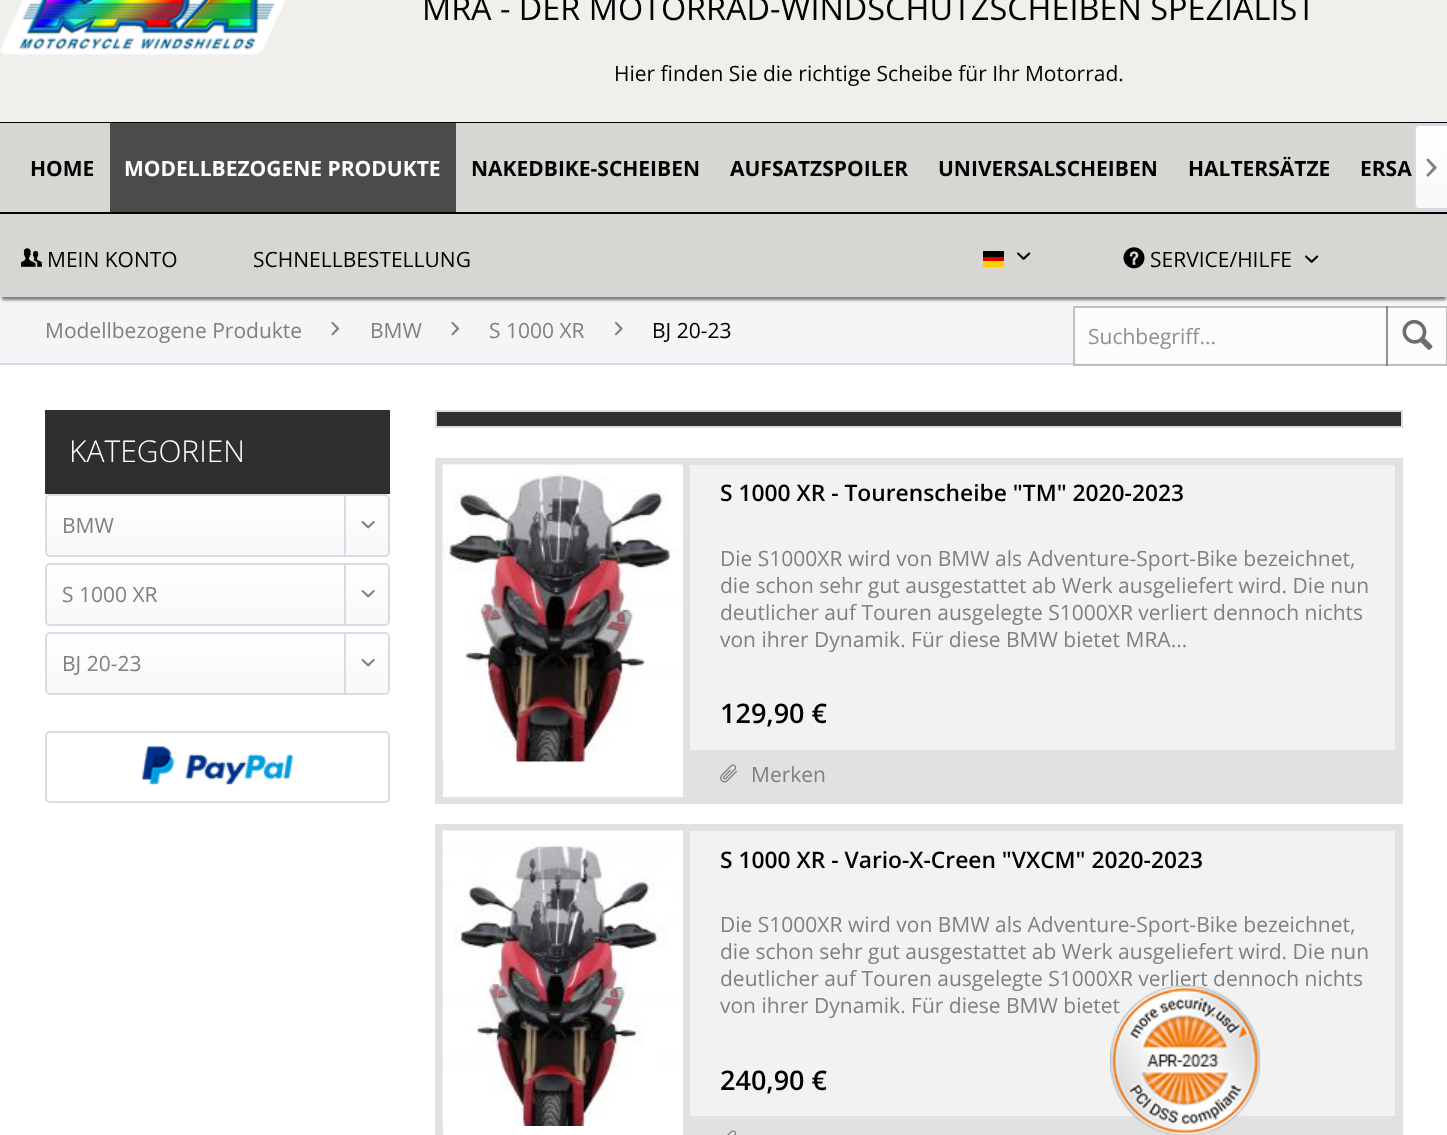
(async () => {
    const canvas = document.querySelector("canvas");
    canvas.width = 1447;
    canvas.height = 1135;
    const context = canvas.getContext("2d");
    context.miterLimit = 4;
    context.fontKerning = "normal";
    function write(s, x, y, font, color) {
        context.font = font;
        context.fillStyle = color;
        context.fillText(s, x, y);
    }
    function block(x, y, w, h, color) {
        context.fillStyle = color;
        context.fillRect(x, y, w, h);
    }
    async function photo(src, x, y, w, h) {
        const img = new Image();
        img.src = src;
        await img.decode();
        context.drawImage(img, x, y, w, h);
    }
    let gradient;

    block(0, 0, 1447, 1135, "rgb(255, 255, 255)");
    block(0, 0, 1447, 122, "rgb(240, 239, 235)");
    block(0, 122, 1447, 1, "rgb(0, 0, 0)");
    await photo("media/1.png", 0, 0, 286, 55);
    write("MRA - DER MOTORRAD-WINDSCHUTZSCHEIBEN SPEZIALIST", 422, 20, "32.4px Open Sans", "rgb(0, 0, 0)");
    write("Hier finden Sie die richtige Scheibe für Ihr Motorrad.", 614, 81, "21px Open Sans", "rgb(0, 0, 0)");
    block(0, 297, 1447, 66, "rgb(245, 245, 248)");
    context.fillStyle = "rgba(0, 0, 0, 0.5)";
    context.filter = "blur(1.5px)";
    context.beginPath();
    context.rect(2, 129, 1444, 171);
    context.fill();
    context.filter = "none";
    block(0, 123, 1447, 174, "rgb(215, 214, 210)");
    block(0, 212, 1447, 2, "rgb(0, 0, 0)");
    write("HOME", 30, 176, "bold 21px Open Sans", "rgb(0, 0, 0)");
    block(110, 123, 346, 89, "rgb(75, 75, 75)");
    write("MODELLBEZOGENE PRODUKTE", 124, 176, "bold 21px Open Sans", "rgb(255, 255, 255)");
    write("NAKEDBIKE-SCHEIBEN", 471, 176, "bold 21px Open Sans", "rgb(0, 0, 0)");
    write("AUFSATZSPOILER", 730, 176, "bold 21px Open Sans", "rgb(0, 0, 0)");
    write("UNIVERSALSCHEIBEN", 938, 176, "bold 21px Open Sans", "rgb(0, 0, 0)");
    write("HALTERSÄTZE", 1188, 176, "bold 21px Open Sans", "rgb(0, 0, 0)");
    write("ERSA", 1360, 176, "bold 21px Open Sans", "rgb(0, 0, 0)");
    gradient = context.createLinearGradient(1432, 126, 1432, 209);
    gradient.addColorStop(0, "rgb(255, 255, 255)");
    gradient.addColorStop(1, "rgb(248, 248, 250)");
    context.fillStyle = gradient;
    context.beginPath();
    context.moveTo(1419, 126);
    context.lineTo(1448, 126);
    context.lineTo(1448, 209);
    context.lineTo(1419, 209);
    context.bezierCurveTo(1417.5, 209, 1416, 207.5, 1416, 206);
    context.lineTo(1416, 129);
    context.bezierCurveTo(1416, 127.5, 1417.5, 126, 1419, 126);
    context.closePath();
    context.fill();
    context.fillStyle = "rgb(218, 218, 229)";
    context.beginPath();
    context.moveTo(1419, 124);
    context.lineTo(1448, 124);
    context.lineTo(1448, 210);
    context.lineTo(1419, 210);
    context.bezierCurveTo(1417, 210, 1414, 208, 1414, 206);
    context.lineTo(1414, 129);
    context.bezierCurveTo(1414, 127, 1417, 124, 1419, 124);
    context.closePath();
    context.moveTo(1419, 126);
    context.lineTo(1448, 126);
    context.lineTo(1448, 208);
    context.lineTo(1419, 208);
    context.bezierCurveTo(1417, 208, 1416, 207, 1416, 206);
    context.lineTo(1416, 129);
    context.bezierCurveTo(1416, 127, 1417, 126, 1419, 126);
    context.closePath();
    context.fill("evenodd");
    await photo("media/2.png", 1426, 158, 11, 19);
    await photo("media/3.png", 21, 248, 21, 19);
    write("MEIN KONTO", 47, 267, "21px Open Sans", "rgb(0, 0, 0)");
    write("SCHNELLBESTELLUNG", 253, 267, "21px Open Sans", "rgb(0, 0, 0)");
    block(983, 251, 21, 6, "rgb(0, 0, 0)");
    block(983, 257, 21, 4, "rgb(221, 0, 0)");
    block(983, 261, 21, 6, "rgb(255, 206, 0)");
    await photo("media/4.png", 1017, 252, 14, 8);
    await photo("media/5.png", 1123, 247, 22, 22);
    write("SERVICE/HILFE", 1150, 267, "21px Open Sans", "rgb(0, 0, 0)");
    await photo("media/4.png", 1305, 255, 14, 8);
    block(1073, 306, 374, 57, "rgb(252, 252, 253)");
    block(1073, 363, 374, 2, "rgb(244, 244, 247)");
    context.strokeStyle = "rgba(166, 166, 166, 0.7)";
    context.lineWidth = 2;
    context.strokeRect(1074, 307, 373, 58);
    write("Suchbegriff...", 1088, 344, "21px Open Sans", "rgb(144, 144, 145)");
    block(1386, 306, 2, 60, "rgba(101, 101, 101, 0.7)");
    await photo("media/6.png", 1402, 319, 31, 31);
    block(690, 831, 705, 285, "rgb(242, 242, 242)");
    write("deutlicher auf Touren ausgelegte S1000XR verliert dennoch nichts", 720, 986, "21px Open Sans", "rgb(128, 128, 128)");
    write("von ihrer Dynamik. Für diese BMW bietet", 720, 1013, "21px Open Sans", "rgb(128, 128, 128)");
    block(690, 1116, 705, 19, "rgb(225, 225, 225)");
    await photo("media/7.png", 1110, 985, 150, 150);
    block(0, 363, 1073, 2, "rgb(218, 218, 229)");
    write("Modellbezogene Produkte", 45, 338, "21px Open Sans", "rgb(128, 128, 128)");
    await photo("media/8.png", 331, 321, 9, 15);
    write("BMW", 370, 338, "21px Open Sans", "rgb(128, 128, 128)");
    await photo("media/8.png", 451, 321, 9, 15);
    write("S 1000 XR", 489, 338, "21px Open Sans", "rgb(128, 128, 128)");
    await photo("media/9.png", 615, 321, 8, 15);
    write("BJ 20-23", 652, 338, "21px Open Sans", "rgb(0, 0, 0)");
    block(45, 410, 345, 84, "rgb(47, 47, 48)");
    write("KATEGORIEN", 69, 462, "300 30px Open Sans", "rgb(255, 255, 255)");
    gradient = context.createLinearGradient(218, 495, 218, 555);
    gradient.addColorStop(0, "rgb(255, 255, 255)");
    gradient.addColorStop(1, "rgb(248, 248, 250)");
    context.fillStyle = gradient;
    context.beginPath();
    context.roundRect(47, 495, 342, 60, 3);
    context.fill();
    context.beginPath();
    context.roundRect(46, 495, 343, 61, 4);
    context.strokeStyle = "rgb(218, 218, 229)";
    context.stroke();
    write("BMW", 62, 533, "21px Open Sans", "rgb(128, 128, 128)");
    block(344, 495, 2, 60, "rgb(218, 218, 229)");
    await photo("media/10.png", 361, 521, 14, 8);
    gradient = context.createLinearGradient(218, 564, 218, 624);
    gradient.addColorStop(0, "rgb(255, 255, 255)");
    gradient.addColorStop(1, "rgb(248, 248, 250)");
    context.fillStyle = gradient;
    context.beginPath();
    context.roundRect(47, 564, 342, 60, 3);
    context.fill();
    context.beginPath();
    context.roundRect(46, 564, 343, 61, 4);
    context.stroke();
    write("S 1000 XR", 62, 602, "21px Open Sans", "rgb(128, 128, 128)");
    block(344, 564, 2, 60, "rgb(218, 218, 229)");
    await photo("media/10.png", 361, 590, 14, 8);
    gradient = context.createLinearGradient(218, 633, 218, 693);
    gradient.addColorStop(0, "rgb(255, 255, 255)");
    gradient.addColorStop(1, "rgb(248, 248, 250)");
    context.fillStyle = gradient;
    context.beginPath();
    context.roundRect(47, 633, 342, 60, 3);
    context.fill();
    context.beginPath();
    context.roundRect(46, 633, 343, 61, 4);
    context.stroke();
    write("BJ 20-23", 62, 671, "21px Open Sans", "rgb(128, 128, 128)");
    block(344, 633, 2, 60, "rgb(218, 218, 229)");
    await photo("media/10.png", 361, 659, 14, 8);
    context.beginPath();
    context.roundRect(46, 732, 343, 70, 4);
    context.stroke();
    await photo("media/11.png", 142, 746, 151, 39);
    context.fillStyle = "rgb(47, 47, 48)";
    context.beginPath();
    context.rect(436, 411, 966, 16);
    context.fill();
    context.stroke();
    block(690, 465, 705, 285, "rgb(242, 242, 242)");
    block(435, 458, 968, 7, "rgb(225, 225, 225)");
    block(1395, 458, 8, 346, "rgb(225, 225, 225)");
    block(435, 797, 968, 7, "rgb(225, 225, 225)");
    block(683, 465, 7, 332, "rgb(225, 225, 225)");
    block(435, 465, 8, 332, "rgb(225, 225, 225)");
    await photo("media/12.png", 442, 464, 241, 298);
    write("S 1000 XR - Tourenscheibe \"TM\" 2020-2023", 720, 501, "600 22.8px Open Sans", "rgb(0, 0, 0)");
    write("Die S1000XR wird von BMW als Adventure-Sport-Bike bezeichnet,", 720, 566, "21px Open Sans", "rgb(128, 128, 128)");
    write("die schon sehr gut ausgestattet ab Werk ausgeliefert wird. Die nun", 720, 593, "21px Open Sans", "rgb(128, 128, 128)");
    write("deutlicher auf Touren ausgelegte S1000XR verliert dennoch nichts", 720, 620, "21px Open Sans", "rgb(128, 128, 128)");
    write("von ihrer Dynamik. Für diese BMW bietet MRA...", 720, 647, "21px Open Sans", "rgb(128, 128, 128)");
    write("129,90 €", 720, 723, "600 27px Open Sans", "rgb(0, 0, 0)");
    block(690, 750, 705, 47, "rgb(225, 225, 225)");
    await photo("media/13.png", 720, 764, 17, 19);
    write("Merken", 751, 782, "21px Open Sans", "rgb(128, 128, 128)");
    block(435, 824, 968, 7, "rgb(225, 225, 225)");
    block(1395, 824, 8, 311, "rgb(225, 225, 225)");
    block(683, 831, 7, 304, "rgb(225, 225, 225)");
    block(435, 831, 8, 304, "rgb(225, 225, 225)");
    await photo("media/14.png", 442, 830, 241, 296);
    write("S 1000 XR - Vario-X-Creen \"VXCM\" 2020-2023", 720, 868, "600 22.8px Open Sans", "rgb(0, 0, 0)");
    write("Die S1000XR wird von BMW als Adventure-Sport-Bike bezeichnet,", 720, 932, "21px Open Sans", "rgb(128, 128, 128)");
    write("die schon sehr gut ausgestattet ab Werk ausgeliefert wird. Die nun", 720, 959, "21px Open Sans", "rgb(128, 128, 128)");
    write("240,90 €", 720, 1090, "600 27px Open Sans", "rgb(0, 0, 0)");
    await photo("media/15.png", 727, 1130, 10, 5);
})();
